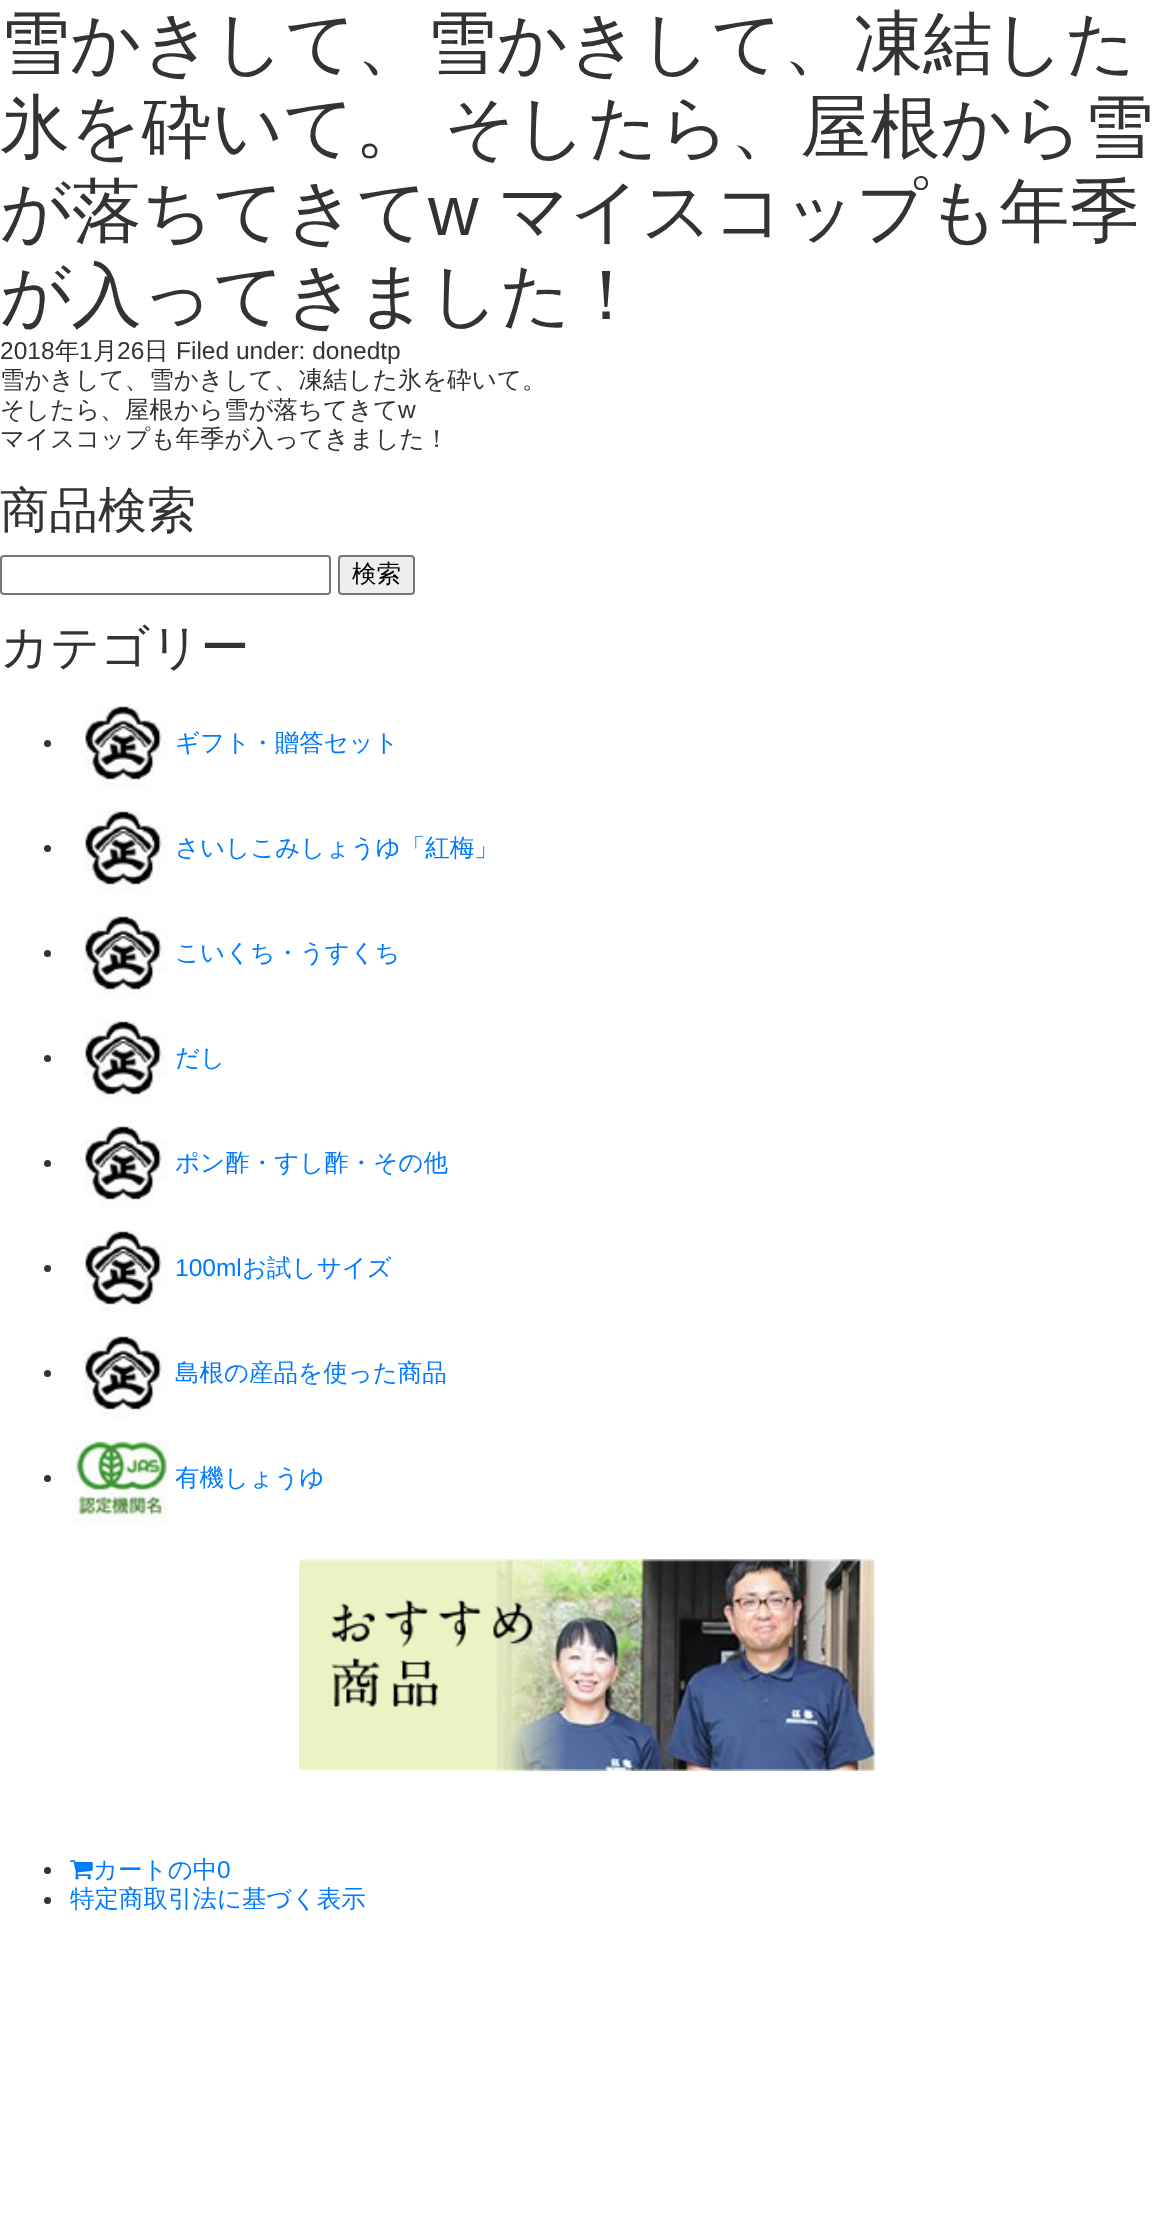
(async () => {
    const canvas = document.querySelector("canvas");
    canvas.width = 1173;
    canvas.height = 2227;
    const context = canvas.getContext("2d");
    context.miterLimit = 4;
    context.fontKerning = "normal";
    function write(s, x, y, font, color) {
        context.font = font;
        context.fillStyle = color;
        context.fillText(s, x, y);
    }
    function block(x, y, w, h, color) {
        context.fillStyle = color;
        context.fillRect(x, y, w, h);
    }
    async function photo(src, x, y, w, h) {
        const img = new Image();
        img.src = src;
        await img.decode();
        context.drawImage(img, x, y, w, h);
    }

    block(0, 0, 1173, 2227, "rgb(255, 255, 255)");
    write("雪かきして、雪かきして、凍結した", 0, 67, "500 70px WenQuanYi Zen Hei", "rgb(51, 51, 51)");
    context.wordSpacing = "-2px";
    write("氷を砕いて。 そしたら、屋根から雪", 0, 151, "500 70px WenQuanYi Zen Hei", "rgb(51, 51, 51)");
    context.wordSpacing = "0px";
    write("が落ちてきて", 0, 235, "500 70px WenQuanYi Zen Hei", "rgb(51, 51, 51)");
    write("w", 428, 235, "70px Liberation Sans", "rgb(51, 51, 51)");
    write("マイスコップも年季", 498, 235, "500 70px WenQuanYi Zen Hei", "rgb(51, 51, 51)");
    write("が入ってきました！", 0, 319, "500 70px WenQuanYi Zen Hei", "rgb(51, 51, 51)");
    write("2018", 0, 359, "24.5px Liberation Sans", "rgb(51, 51, 51)");
    write("年", 55, 359, "500 24.5px WenQuanYi Zen Hei", "rgb(51, 51, 51)");
    write("1", 79, 359, "24.5px Liberation Sans", "rgb(51, 51, 51)");
    write("月", 93, 359, "500 24.5px WenQuanYi Zen Hei", "rgb(51, 51, 51)");
    write("26", 117, 359, "24.5px Liberation Sans", "rgb(51, 51, 51)");
    write("日", 144, 359, "500 24.5px WenQuanYi Zen Hei", "rgb(51, 51, 51)");
    write("Filed under: donedtp", 176, 359, "24.5px Liberation Sans", "rgb(51, 51, 51)");
    write("雪かきして、雪かきして、凍結した氷を砕いて。", 0, 388, "500 24.5px WenQuanYi Zen Hei", "rgb(51, 51, 51)");
    write("そしたら、屋根から雪が落ちてきて", 0, 418, "500 24.5px WenQuanYi Zen Hei", "rgb(51, 51, 51)");
    write("w", 398, 418, "24.5px Liberation Sans", "rgb(51, 51, 51)");
    write("マイスコップも年季が入ってきました！", 0, 447, "500 24.5px WenQuanYi Zen Hei", "rgb(51, 51, 51)");
    write("商品検索", 0, 527, "500 49px WenQuanYi Zen Hei", "rgb(51, 51, 51)");
    context.beginPath();
    context.roundRect(1, 556, 329, 38, 3);
    context.strokeStyle = "rgb(118, 118, 118)";
    context.lineWidth = 2;
    context.stroke();
    context.fillStyle = "rgb(239, 239, 239)";
    context.beginPath();
    context.roundRect(339, 556, 75, 38, 3);
    context.fill();
    context.stroke();
    write("検索", 352, 582, "500 24.5px WenQuanYi Zen Hei", "rgb(0, 0, 0)");
    write("カテゴリー", 0, 664, "500 49px WenQuanYi Zen Hei", "rgb(51, 51, 51)");
    context.beginPath();
    context.arc(47.5, 743.5, 3.5, 0, Math.PI * 2);
    context.fill();
    await photo("media/1.png", 84, 705, 84, 84);
    write("ギフト・贈答セット", 175, 751, "500 24.5px WenQuanYi Zen Hei", "rgb(0, 123, 255)");
    context.fillStyle = "rgb(51, 51, 51)";
    context.beginPath();
    context.arc(47.5, 848.5, 3.5, 0, Math.PI * 2);
    context.fill();
    await photo("media/1.png", 84, 810, 84, 84);
    write("さいしこみしょうゆ「紅梅」", 175, 856, "500 24.5px WenQuanYi Zen Hei", "rgb(0, 123, 255)");
    context.fillStyle = "rgb(51, 51, 51)";
    context.beginPath();
    context.arc(47.5, 953.5, 3.5, 0, Math.PI * 2);
    context.fill();
    await photo("media/1.png", 84, 915, 84, 84);
    write("こいくち・うすくち", 175, 961, "500 24.5px WenQuanYi Zen Hei", "rgb(0, 123, 255)");
    context.fillStyle = "rgb(51, 51, 51)";
    context.beginPath();
    context.arc(47.5, 1058.5, 3.5, 0, Math.PI * 2);
    context.fill();
    await photo("media/1.png", 84, 1020, 84, 84);
    write("だし", 175, 1066, "500 24.5px WenQuanYi Zen Hei", "rgb(0, 123, 255)");
    context.fillStyle = "rgb(51, 51, 51)";
    context.beginPath();
    context.arc(47.5, 1163.5, 3.5, 0, Math.PI * 2);
    context.fill();
    await photo("media/1.png", 84, 1125, 84, 84);
    write("ポン酢・すし酢・その他", 175, 1171, "500 24.5px WenQuanYi Zen Hei", "rgb(0, 123, 255)");
    context.fillStyle = "rgb(51, 51, 51)";
    context.beginPath();
    context.arc(47.5, 1268.5, 3.5, 0, Math.PI * 2);
    context.fill();
    await photo("media/1.png", 84, 1230, 84, 84);
    write("100ml", 175, 1276, "24.5px Liberation Sans", "rgb(0, 123, 255)");
    write("お試しサイズ", 242, 1276, "500 24.5px WenQuanYi Zen Hei", "rgb(0, 123, 255)");
    context.fillStyle = "rgb(51, 51, 51)";
    context.beginPath();
    context.arc(47.5, 1373.5, 3.5, 0, Math.PI * 2);
    context.fill();
    await photo("media/1.png", 84, 1335, 84, 84);
    write("島根の産品を使った商品", 175, 1381, "500 24.5px WenQuanYi Zen Hei", "rgb(0, 123, 255)");
    context.fillStyle = "rgb(51, 51, 51)";
    context.beginPath();
    context.arc(47.5, 1478.5, 3.5, 0, Math.PI * 2);
    context.fill();
    await photo("media/2.png", 70, 1440, 99, 85);
    write("有機しょうゆ", 175, 1486, "500 24.5px WenQuanYi Zen Hei", "rgb(0, 123, 255)");
    await photo("media/3.png", 299, 1559, 576, 212);
    context.fillStyle = "rgb(51, 51, 51)";
    context.beginPath();
    context.arc(47.5, 1870.5, 3.5, 0, Math.PI * 2);
    context.fill();
    await photo("media/4.png", 70, 1860, 23, 20);
    write("カートの中", 93, 1878, "500 24.5px WenQuanYi Zen Hei", "rgb(0, 123, 255)");
    write("0", 217, 1878, "24.5px Liberation Sans", "rgb(0, 123, 255)");
    context.fillStyle = "rgb(51, 51, 51)";
    context.beginPath();
    context.arc(47.5, 1900.5, 3.5, 0, Math.PI * 2);
    context.fill();
    write("特定商取引法に基づく表示", 70, 1907, "500 24.5px WenQuanYi Zen Hei", "rgb(0, 123, 255)");
})();
